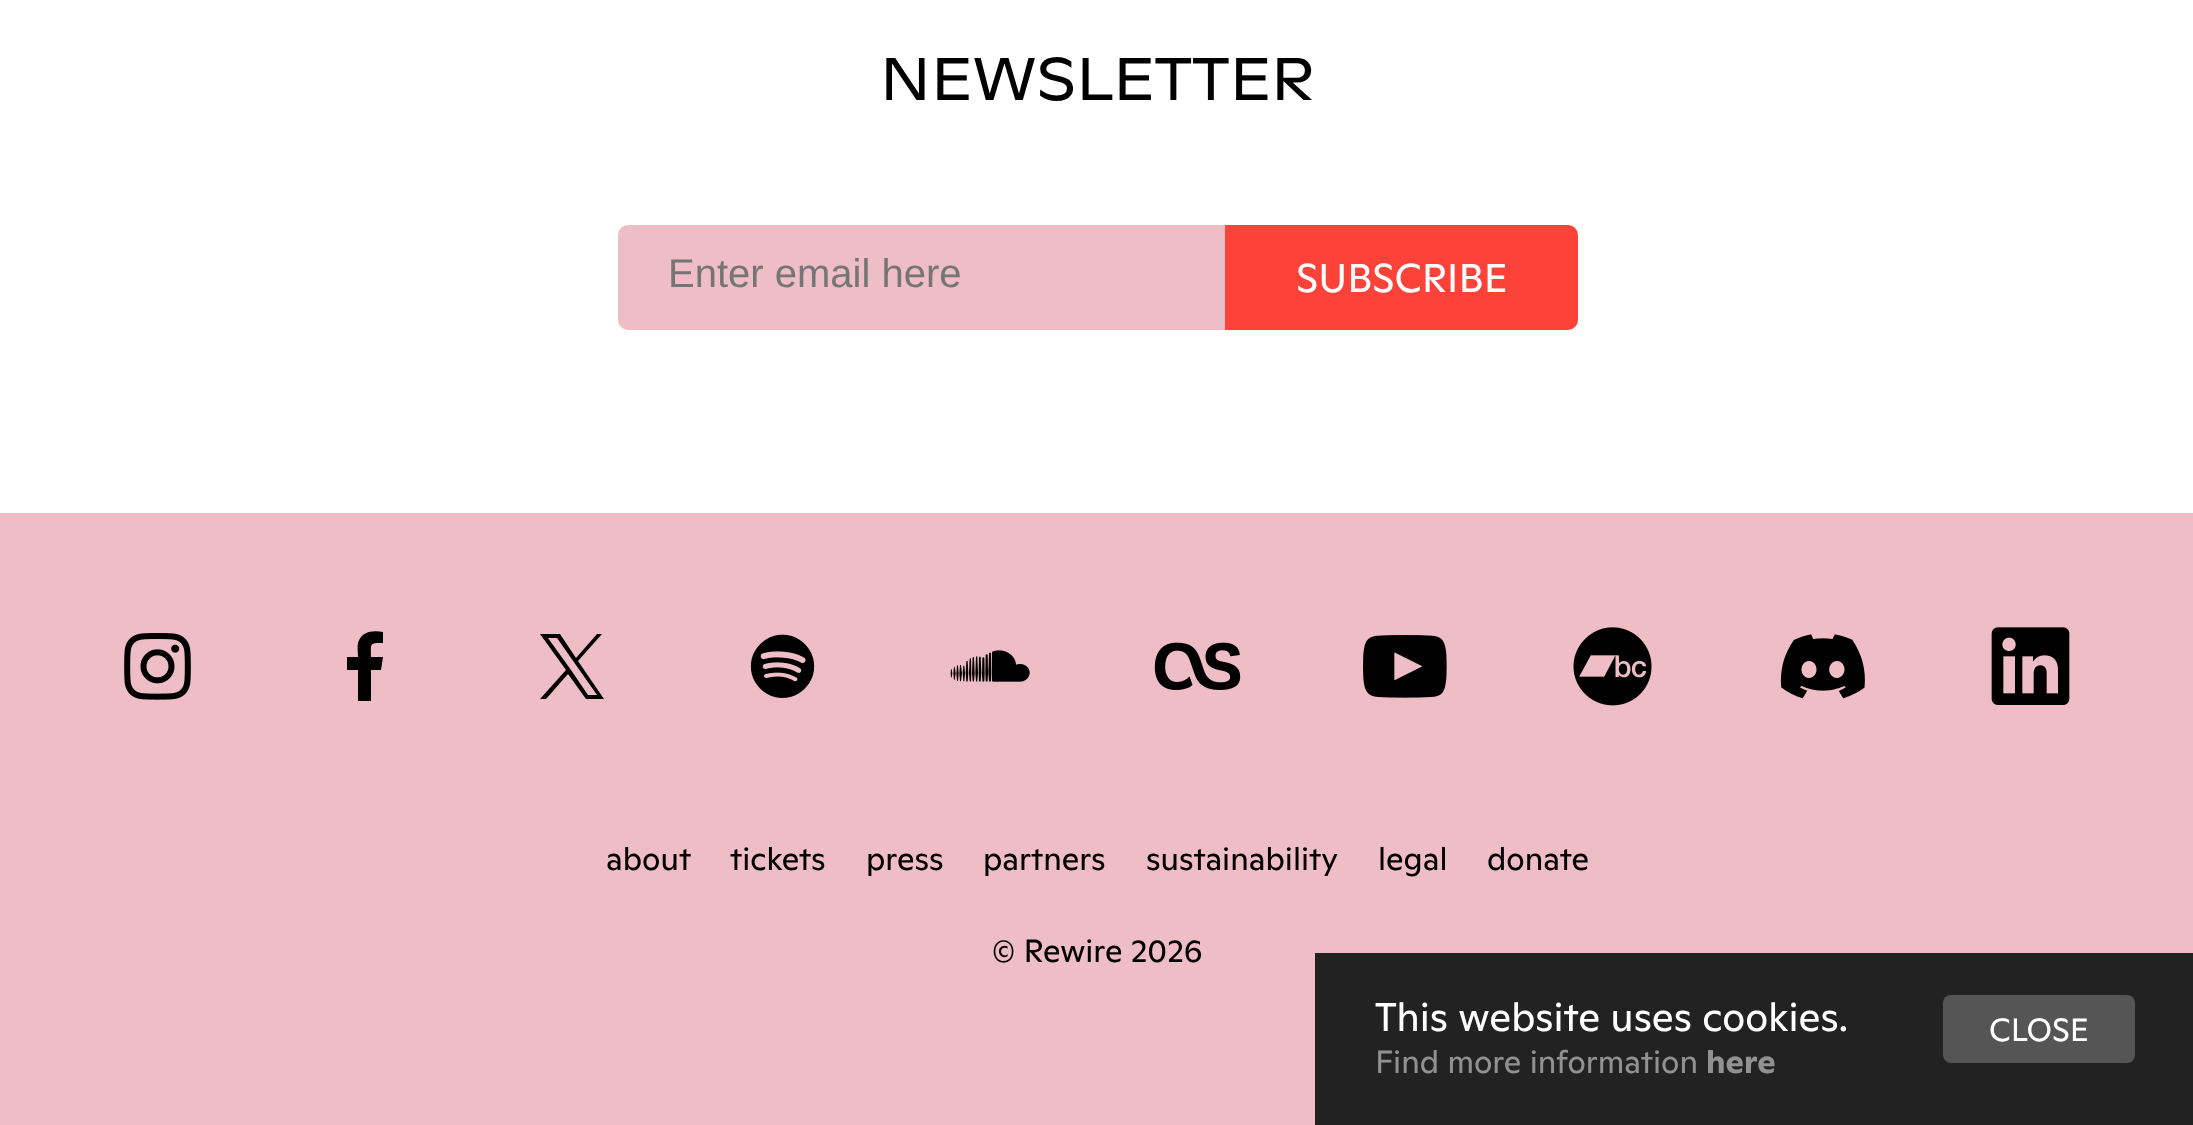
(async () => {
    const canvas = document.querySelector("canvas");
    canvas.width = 2193;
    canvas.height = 1125;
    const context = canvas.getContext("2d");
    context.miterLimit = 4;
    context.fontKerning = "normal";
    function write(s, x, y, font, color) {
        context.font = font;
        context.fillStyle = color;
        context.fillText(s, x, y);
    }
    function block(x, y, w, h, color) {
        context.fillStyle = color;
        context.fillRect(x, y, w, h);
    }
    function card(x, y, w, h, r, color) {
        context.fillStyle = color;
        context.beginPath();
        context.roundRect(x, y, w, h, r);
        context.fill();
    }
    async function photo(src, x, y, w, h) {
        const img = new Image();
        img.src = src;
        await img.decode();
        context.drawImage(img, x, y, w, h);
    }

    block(0, 0, 2193, 1125, "rgb(239, 189, 197)");
    block(0, 0, 2193, 513, "rgb(255, 255, 255)");
    write("NEWSLETTER", 880, 100, "60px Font", "rgb(0, 0, 0)");
    context.fillStyle = "rgb(239, 189, 197)";
    context.beginPath();
    context.roundRect(618, 225, 607, 105, [10, 0, 0, 10]);
    context.fill();
    write("Enter email here", 668, 287, "40px Liberation Sans", "rgb(117, 117, 117)");
    context.fillStyle = "rgb(253, 66, 57)";
    context.beginPath();
    context.roundRect(1225, 225, 353, 105, [0, 10, 10, 0]);
    context.fill();
    write("SUBSCRIBE", 1296, 292, "40px 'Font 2'", "rgb(255, 255, 255)");
    await photo("media/1.png", 124, 633, 67, 67);
    context.fillStyle = "rgb(0, 0, 0)";
    context.beginPath();
    context.moveTo(371, 701);
    context.lineTo(371, 670);
    context.lineTo(381, 670);
    context.lineTo(383, 657);
    context.lineTo(371, 657);
    context.bezierCurveTo(371, 643, 369, 643, 383, 643);
    context.lineTo(383, 632);
    context.bezierCurveTo(374, 630, 361, 631, 358, 643);
    context.bezierCurveTo(357, 647, 358, 652, 358, 657);
    context.lineTo(347, 657);
    context.lineTo(347, 670);
    context.lineTo(358, 670);
    context.lineTo(358, 701);
    context.closePath();
    context.fill();
    context.beginPath();
    context.moveTo(578, 661);
    context.lineTo(602, 634);
    context.lineTo(597, 634);
    context.lineTo(576, 658);
    context.lineTo(560, 634);
    context.lineTo(540, 634);
    context.lineTo(566, 670);
    context.lineTo(540, 699);
    context.lineTo(546, 699);
    context.lineTo(568, 674);
    context.lineTo(586, 699);
    context.lineTo(604, 699);
    context.closePath();
    context.moveTo(571, 670);
    context.lineTo(548, 638);
    context.lineTo(557, 638);
    context.lineTo(597, 695);
    context.lineTo(588, 695);
    context.closePath();
    context.fill();
    await photo("media/2.png", 750, 634, 65, 64);
    await photo("media/3.png", 950, 650, 80, 32);
    await photo("media/4.png", 1154, 642, 87, 48);
    await photo("media/5.png", 1363, 635, 84, 63);
    await photo("media/6.png", 1573, 627, 79, 79);
    await photo("media/7.png", 1780, 634, 85, 65);
    await photo("media/8.png", 1991, 627, 79, 78);
    write("about", 606, 870, "32px 'Font 2'", "rgb(0, 0, 0)");
    write("tickets", 730, 870, "32px 'Font 2'", "rgb(0, 0, 0)");
    write("press", 866, 870, "32px 'Font 2'", "rgb(0, 0, 0)");
    write("partners", 983, 870, "32px 'Font 2'", "rgb(0, 0, 0)");
    write("sustainability", 1146, 870, "32px 'Font 2'", "rgb(0, 0, 0)");
    write("legal", 1378, 870, "32px 'Font 2'", "rgb(0, 0, 0)");
    write("donate", 1487, 870, "32px 'Font 2'", "rgb(0, 0, 0)");
    write("© Rewire 2026", 992, 962, "32px 'Font 2'", "rgb(0, 0, 0)");
    block(1315, 953, 878, 172, "rgb(34, 34, 34)");
    write("This website uses cookies.", 1375, 1031, "40px 'Font 2'", "rgb(255, 255, 255)");
    write("Find more information", 1375, 1073, "32px 'Font 2'", "rgb(145, 145, 145)");
    write("here", 1706, 1073, "bold 32px Font", "rgb(145, 145, 145)");
    card(1943, 995, 192, 68, 8, "rgb(85, 85, 85)");
    write("CLOSE", 1989, 1041, "32px 'Font 2'", "rgb(255, 255, 255)");
})();
